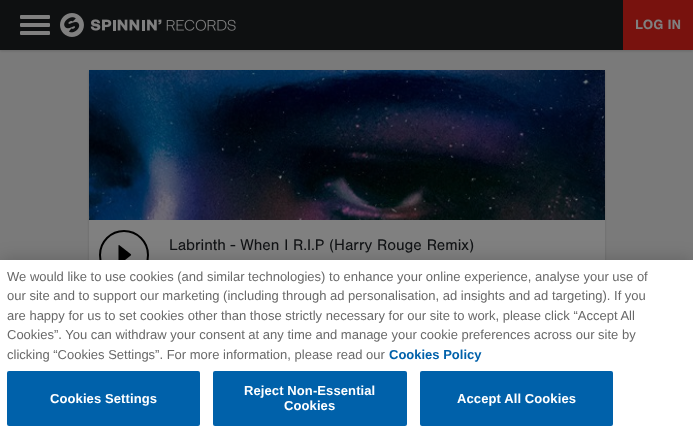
(async () => {
    const canvas = document.querySelector("canvas");
    canvas.width = 693;
    canvas.height = 442;
    const context = canvas.getContext("2d");
    context.miterLimit = 4;
    context.fontKerning = "normal";
    function write(s, x, y, font, color) {
        context.font = font;
        context.fillStyle = color;
        context.fillText(s, x, y);
    }
    function block(x, y, w, h, color) {
        context.fillStyle = color;
        context.fillRect(x, y, w, h);
    }
    function card(x, y, w, h, r, color) {
        context.fillStyle = color;
        context.beginPath();
        context.roundRect(x, y, w, h, r);
        context.fill();
    }
    async function photo(src, x, y, w, h) {
        const img = new Image();
        img.src = src;
        await img.decode();
        context.drawImage(img, x, y, w, h);
    }

    block(0, 0, 693, 442, "rgb(122, 122, 122)");
    context.fillStyle = "rgba(0, 0, 0, 0.15)";
    context.filter = "blur(1px)";
    context.beginPath();
    context.rect(0, 1, 693, 50);
    context.fill();
    context.filter = "none";
    block(0, 0, 623, 50, "rgb(14, 16, 17)");
    card(20, 15, 30, 4, 1, "rgb(128, 128, 128)");
    card(20, 23, 30, 4, 1, "rgb(128, 128, 128)");
    card(20, 31, 30, 4, 1, "rgb(128, 128, 128)");
    await photo("media/1.png", 60, 13, 176, 24);
    block(623, 0, 70, 50, "rgb(120, 18, 14)");
    write("LOG IN", 635, 29, "bold 14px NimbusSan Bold", "rgb(128, 128, 128)");
    context.fillStyle = "rgba(0, 0, 0, 0.15)";
    context.filter = "blur(1px)";
    context.beginPath();
    context.rect(89, 71, 516, 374);
    context.fill();
    context.filter = "none";
    block(89, 220, 516, 40, "rgb(128, 128, 128)");
    await photo("media/2.png", 89, 70, 516, 150);
    context.beginPath();
    context.arc(124, 255, 24, 0, Math.PI * 2);
    context.strokeStyle = "rgb(0, 0, 0)";
    context.lineWidth = 2;
    context.stroke();
    await photo("media/3.png", 118, 245, 14, 15);
    write("Labrinth - When I R.I.P (Harry Rouge Remix)", 169, 250, "16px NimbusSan", "rgb(17, 19, 21)");
    context.fillStyle = "rgba(0, 0, 0, 0.2)";
    context.filter = "blur(9px)";
    context.beginPath();
    context.rect(0, 260, 693, 182);
    context.fill();
    context.filter = "none";
    block(0, 260, 693, 182, "rgb(255, 255, 255)");
    write("We would like to use cookies (and similar technologies) to enhance your online experience, analyse your use of", 7, 281, "13px Liberation Sans", "rgb(105, 105, 105)");
    write("our site and to support our marketing (including through ad personalisation, ad insights and ad targeting). If you", 7, 300, "13px Liberation Sans", "rgb(105, 105, 105)");
    write("are happy for us to set cookies other than those strictly necessary for our site to work, please click “Accept All", 7, 320, "13px Liberation Sans", "rgb(105, 105, 105)");
    write("Cookies”. You can withdraw your consent at any time and manage your cookie preferences across our site by", 7, 339, "13px Liberation Sans", "rgb(105, 105, 105)");
    write("clicking “Cookies Settings”. For more information, please read our", 7, 359, "13px Liberation Sans", "rgb(105, 105, 105)");
    write("Cookies Policy", 389, 359, "bold 13px Liberation Sans", "rgb(0, 97, 170)");
    card(7, 371, 193, 55, 2, "rgb(0, 97, 170)");
    context.letterSpacing = "0.1px";
    write("Cookies Settings", 50, 403, "bold 13px Liberation Sans", "rgb(255, 255, 255)");
    card(213, 371, 194, 55, 2, "rgb(0, 97, 170)");
    write("Reject Non-Essential", 244, 395, "bold 13px Liberation Sans", "rgb(255, 255, 255)");
    write("Cookies", 284, 410, "bold 13px Liberation Sans", "rgb(255, 255, 255)");
    card(420, 371, 193, 55, 2, "rgb(0, 97, 170)");
    write("Accept All Cookies", 457, 403, "bold 13px Liberation Sans", "rgb(255, 255, 255)");
})();
